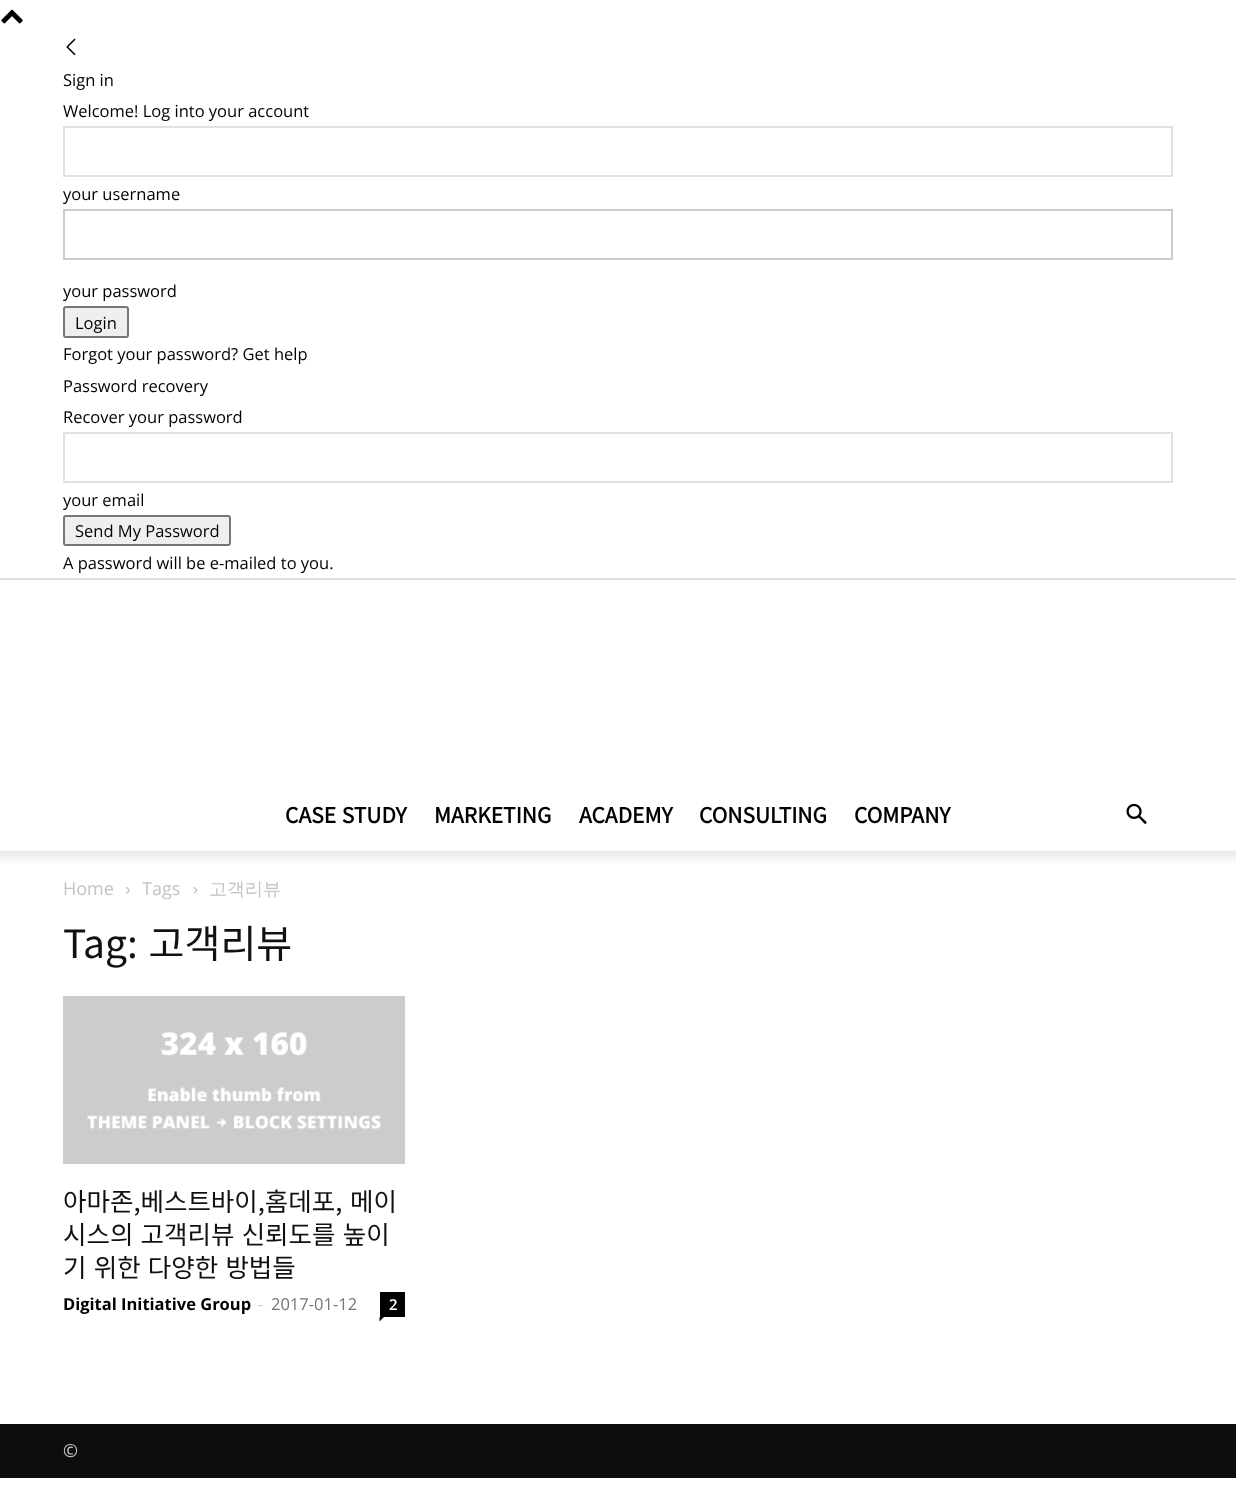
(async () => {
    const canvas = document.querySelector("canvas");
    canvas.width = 1236;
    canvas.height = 1488;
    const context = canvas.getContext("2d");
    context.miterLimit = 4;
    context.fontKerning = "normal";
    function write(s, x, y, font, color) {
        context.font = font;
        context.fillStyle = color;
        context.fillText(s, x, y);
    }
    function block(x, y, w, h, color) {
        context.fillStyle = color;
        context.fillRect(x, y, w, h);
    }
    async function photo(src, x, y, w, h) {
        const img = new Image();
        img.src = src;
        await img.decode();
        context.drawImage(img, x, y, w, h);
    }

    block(0, 0, 1236, 1488, "rgb(255, 255, 255)");
    await photo("media/1.png", 1, 9, 22, 15);
    block(0, 578, 1236, 2, "rgb(224, 224, 224)");
    await photo("media/2.png", 66, 38, 10, 18);
    write("Sign in", 63, 86, "16.5px Open Sans", "rgb(0, 0, 0)");
    write("Welcome! Log into your account", 63, 117, "16.5px Open Sans", "rgb(0, 0, 0)");
    context.strokeStyle = "rgb(225, 225, 225)";
    context.lineWidth = 2;
    context.strokeRect(64, 127, 1108, 49);
    write("your username", 63, 200, "16.5px Open Sans", "rgb(0, 0, 0)");
    context.strokeStyle = "rgb(204, 204, 204)";
    context.strokeRect(64, 210, 1108, 49);
    write("your password", 63, 297, "16.5px Open Sans", "rgb(0, 0, 0)");
    context.fillStyle = "rgb(239, 239, 239)";
    context.beginPath();
    context.roundRect(64, 307, 64, 30, 2);
    context.fill();
    context.strokeStyle = "rgb(118, 118, 118)";
    context.stroke();
    write("Login", 75, 329, "16.5px Open Sans", "rgb(0, 0, 0)");
    write("Forgot your password? Get help", 63, 360, "16.5px Open Sans", "rgb(0, 0, 0)");
    write("Password recovery", 63, 392, "16.5px Open Sans", "rgb(0, 0, 0)");
    write("Recover your password", 63, 423, "16.5px Open Sans", "rgb(0, 0, 0)");
    context.strokeStyle = "rgb(225, 225, 225)";
    context.strokeRect(64, 433, 1108, 49);
    write("your email", 63, 506, "16.5px Open Sans", "rgb(0, 0, 0)");
    context.fillStyle = "rgb(239, 239, 239)";
    context.beginPath();
    context.roundRect(64, 516, 166, 29, 2);
    context.fill();
    context.strokeStyle = "rgb(118, 118, 118)";
    context.stroke();
    write("Send My Password", 75, 537, "16.5px Open Sans", "rgb(0, 0, 0)");
    write("A password will be e-mailed to you.", 63, 569, "16.5px Open Sans", "rgb(0, 0, 0)");
    context.wordSpacing = "1px";
    write("CASE STUDY", 285, 823, "bold 21px Noto Sans KR", "rgb(0, 0, 0)");
    context.wordSpacing = "0px";
    write("MARKETING", 434, 823, "bold 21px Noto Sans KR", "rgb(0, 0, 0)");
    write("ACADEMY", 579, 823, "bold 21px Noto Sans KR", "rgb(0, 0, 0)");
    write("CONSULTING", 699, 823, "bold 21px Noto Sans KR", "rgb(0, 0, 0)");
    write("COMPANY", 854, 823, "bold 21px Noto Sans KR", "rgb(0, 0, 0)");
    await photo("media/3.png", 1126, 803, 21, 21);
    await photo("media/4.png", 0, 850, 1236, 13);
    write("Home", 63, 895, "18px Open Sans", "rgb(195, 195, 195)");
    await photo("media/5.png", 126, 887, 4, 7);
    write("Tags", 142, 895, "18px Open Sans", "rgb(195, 195, 195)");
    await photo("media/6.png", 193, 887, 5, 7);
    write("고객리뷰", 209, 895, "500 18px WenQuanYi Zen Hei", "rgb(195, 195, 195)");
    context.wordSpacing = "2px";
    write("Tag: 고객리뷰", 63, 958, "100 39px Noto Sans KR", "rgb(17, 17, 17)");
    await photo("media/7.png", 63, 996, 342, 168);
    write("아마존,베스트바이,홈데포, 메이", 63, 1211, "100 25.5px Noto Sans KR", "rgb(17, 17, 17)");
    context.wordSpacing = "1.5px";
    write("시스의 고객리뷰 신뢰도를 높이", 63, 1244, "100 25.5px Noto Sans KR", "rgb(17, 17, 17)");
    write("기 위한 다양한 방법들", 63, 1277, "100 25.5px Noto Sans KR", "rgb(17, 17, 17)");
    context.wordSpacing = "0px";
    write("Digital Initiative Group", 63, 1310, "bold 16.5px Open Sans", "rgb(0, 0, 0)");
    write("-", 258, 1310, "16.5px Open Sans", "rgb(204, 204, 204)");
    write("2017-01-12", 271, 1310, "16.5px Open Sans", "rgb(118, 118, 118)");
    block(380, 1292, 25, 25, "rgb(0, 0, 0)");
    write("2", 389, 1310, "600 15px Open Sans", "rgb(255, 255, 255)");
    context.fillStyle = "rgb(0, 0, 0)";
    context.beginPath();
    context.moveTo(379.5, 1317);
    context.lineTo(384, 1317);
    context.lineTo(379.5, 1321.5);
    context.closePath();
    context.fill();
    block(0, 1424, 1236, 54, "rgb(13, 13, 13)");
    write("©", 63, 1457, "18px Open Sans", "rgb(204, 204, 204)");
})();
